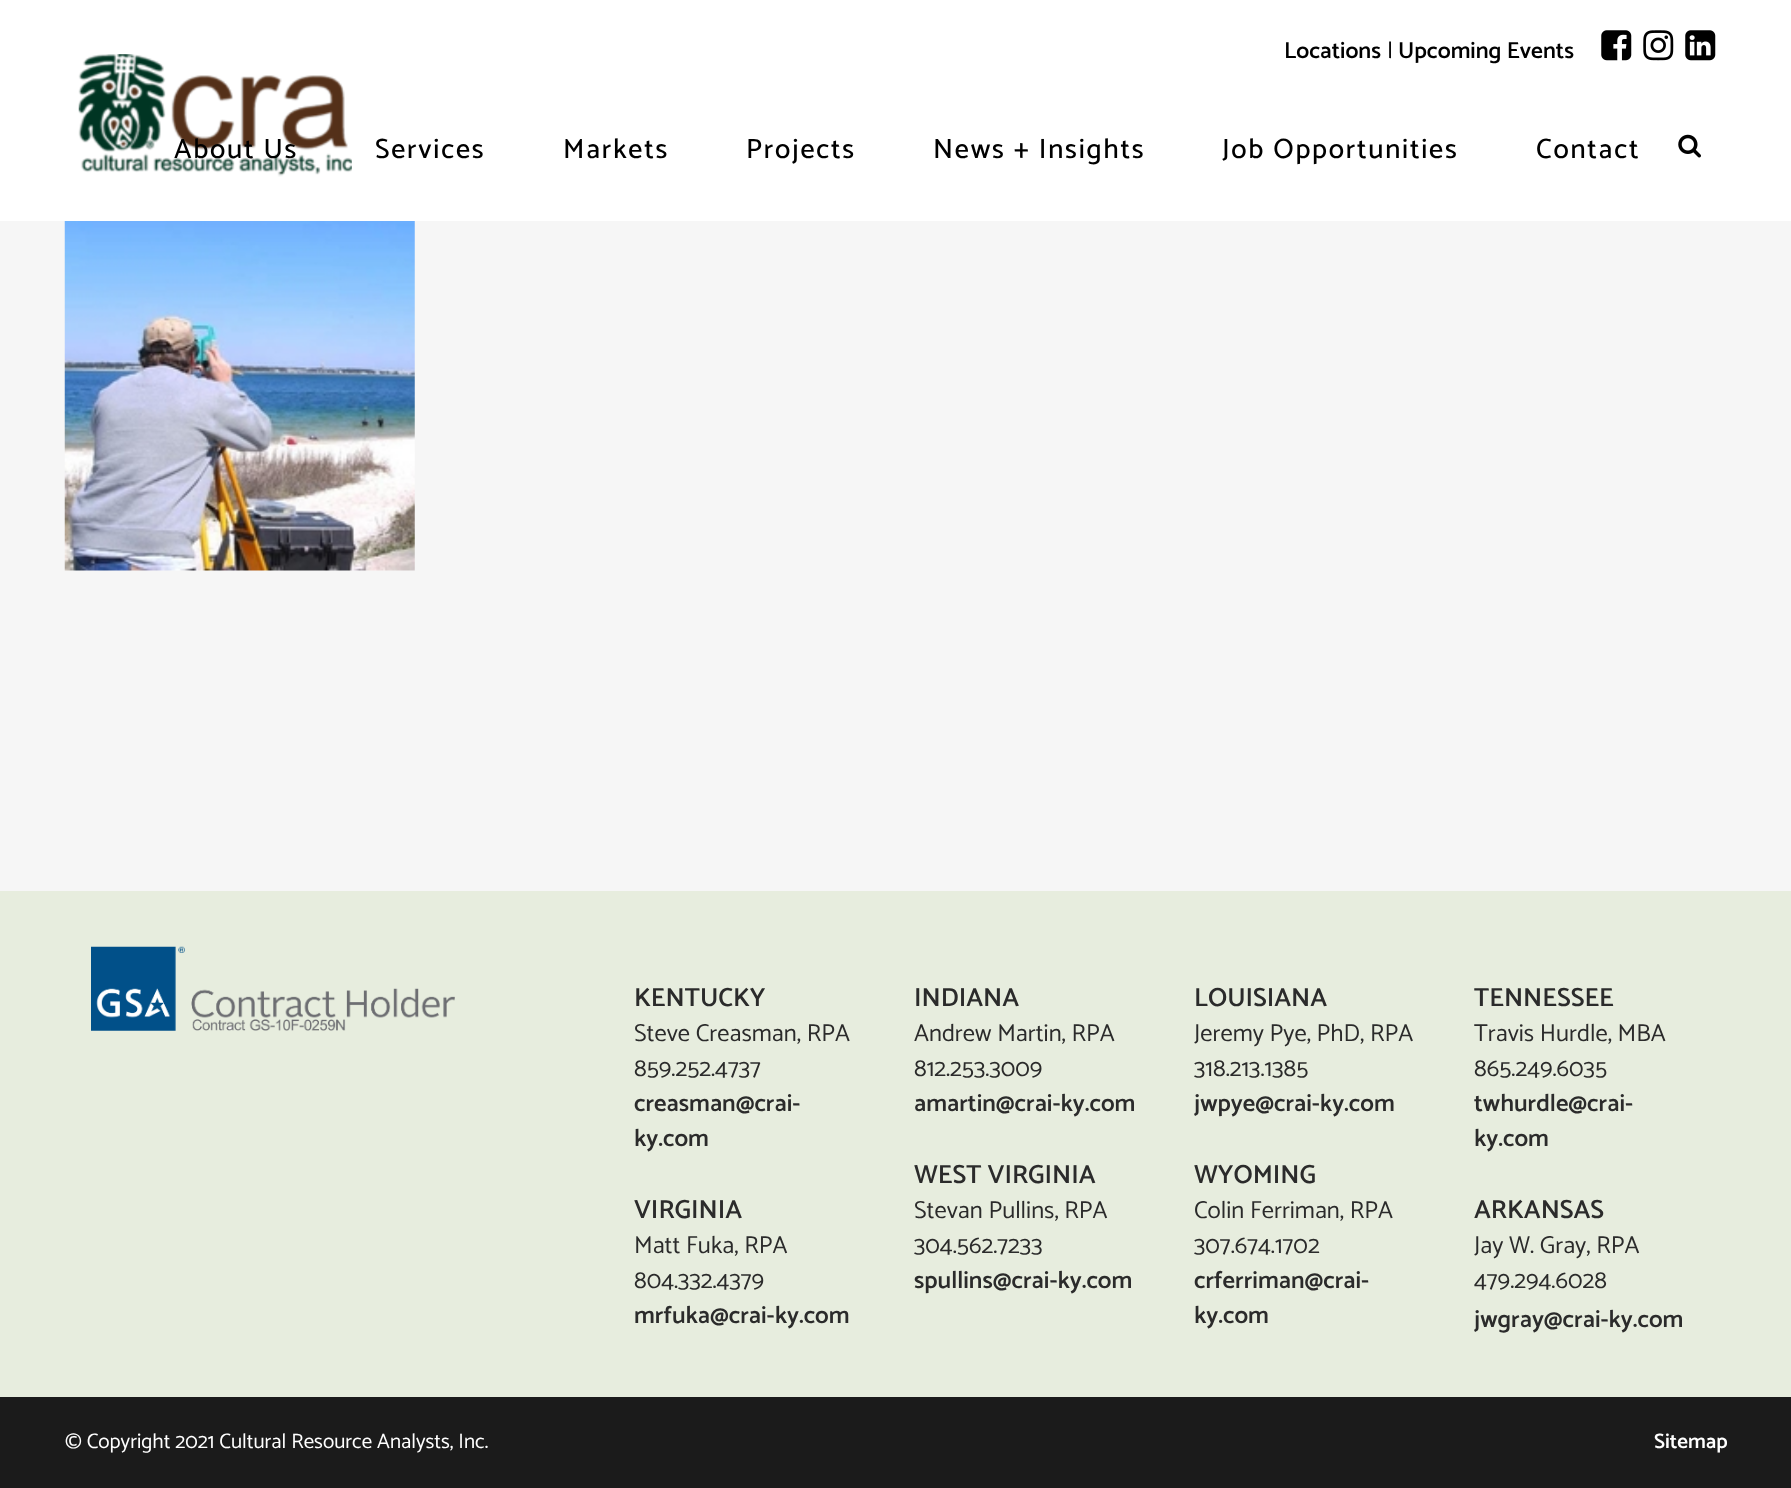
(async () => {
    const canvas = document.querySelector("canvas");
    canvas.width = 1791;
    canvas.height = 1488;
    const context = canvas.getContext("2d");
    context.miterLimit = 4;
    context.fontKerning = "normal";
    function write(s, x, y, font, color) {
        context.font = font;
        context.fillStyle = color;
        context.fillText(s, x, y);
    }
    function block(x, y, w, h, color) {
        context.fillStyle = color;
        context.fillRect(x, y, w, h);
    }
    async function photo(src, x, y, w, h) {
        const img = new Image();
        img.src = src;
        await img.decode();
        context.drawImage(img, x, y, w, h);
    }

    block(0, 0, 1791, 1488, "rgb(246, 246, 246)");
    block(0, 0, 1791, 221, "rgb(255, 255, 255)");
    write("Locations", 1284, 58, "600 23.25px Catamaran", "rgb(0, 0, 0)");
    write("|", 1387, 58, "23.25px Catamaran", "rgb(0, 0, 0)");
    write("Upcoming Events", 1398, 58, "600 23.25px Catamaran", "rgb(0, 0, 0)");
    await photo("media/1.png", 1601, 30, 31, 31);
    await photo("media/2.png", 1643, 30, 31, 31);
    await photo("media/3.png", 1685, 30, 31, 31);
    await photo("media/4.png", 78, 54, 274, 123);
    await photo("media/5.png", 1678, 134, 23, 24);
    context.letterSpacing = "1.75px";
    write("About Us", 174, 158, "500 28px Catamaran", "rgb(0, 0, 0)");
    write("Services", 375, 158, "500 28px Catamaran", "rgb(0, 0, 0)");
    write("Markets", 563, 158, "500 28px Catamaran", "rgb(0, 0, 0)");
    write("Projects", 746, 158, "500 28px Catamaran", "rgb(0, 0, 0)");
    write("News + Insights", 933, 158, "500 28px Catamaran", "rgb(0, 0, 0)");
    write("Job Opportunities", 1222, 158, "500 28px Catamaran", "rgb(0, 0, 0)");
    write("Contact", 1536, 158, "500 28px Catamaran", "rgb(0, 0, 0)");
    await photo("media/6.png", 64, 221, 351, 350);
    block(0, 891, 1791, 506, "rgb(231, 237, 222)");
    await photo("media/7.png", 91, 946, 364, 85);
    context.letterSpacing = "0px";
    write("KENTUCKY", 634, 1006, "600 26.25px Catamaran", "rgb(43, 43, 43)");
    write("Steve Creasman, RPA", 634, 1041, "24.5px Catamaran", "rgb(43, 43, 43)");
    write("859.252.4737", 634, 1076, "24.5px Catamaran", "rgb(43, 43, 43)");
    write("creasman@crai-", 634, 1111, "600 24.5px Catamaran", "rgb(43, 43, 43)");
    write("ky.com", 634, 1146, "600 24.5px Catamaran", "rgb(43, 43, 43)");
    write("VIRGINIA", 634, 1218, "600 26.25px Catamaran", "rgb(43, 43, 43)");
    write("Matt Fuka, RPA", 634, 1253, "24.5px Catamaran", "rgb(43, 43, 43)");
    write("804.332.4379", 634, 1288, "24.5px Catamaran", "rgb(43, 43, 43)");
    write("mrfuka@crai-ky.com", 634, 1323, "600 24.5px Catamaran", "rgb(43, 43, 43)");
    write("INDIANA", 914, 1006, "600 26.25px Catamaran", "rgb(43, 43, 43)");
    write("Andrew Martin, RPA", 914, 1041, "24.5px Catamaran", "rgb(43, 43, 43)");
    write("812.253.3009", 914, 1076, "24.5px Catamaran", "rgb(43, 43, 43)");
    write("amartin@crai-ky.com", 914, 1111, "600 24.5px Catamaran", "rgb(43, 43, 43)");
    write("WEST VIRGINIA", 914, 1183, "600 26.25px Catamaran", "rgb(43, 43, 43)");
    write("Stevan Pullins, RPA", 914, 1218, "24.5px Catamaran", "rgb(43, 43, 43)");
    write("304.562.7233", 914, 1253, "24.5px Catamaran", "rgb(43, 43, 43)");
    write("spullins@crai-ky.com", 914, 1288, "600 24.5px Catamaran", "rgb(43, 43, 43)");
    write("LOUISIANA", 1194, 1006, "600 26.25px Catamaran", "rgb(43, 43, 43)");
    write("Jeremy Pye, PhD, RPA", 1194, 1041, "24.5px Catamaran", "rgb(43, 43, 43)");
    write("318.213.1385", 1194, 1076, "24.5px Catamaran", "rgb(43, 43, 43)");
    write("jwpye@crai-ky.com", 1194, 1111, "600 24.5px Catamaran", "rgb(43, 43, 43)");
    write("WYOMING", 1194, 1183, "600 26.25px Catamaran", "rgb(43, 43, 43)");
    write("Colin Ferriman, RPA", 1194, 1218, "24.5px Catamaran", "rgb(43, 43, 43)");
    write("307.674.1702", 1194, 1253, "24.5px Catamaran", "rgb(43, 43, 43)");
    write("crferriman@crai-", 1194, 1288, "600 24.5px Catamaran", "rgb(43, 43, 43)");
    write("ky.com", 1194, 1323, "600 24.5px Catamaran", "rgb(43, 43, 43)");
    write("TENNESSEE", 1474, 1006, "600 26.25px Catamaran", "rgb(43, 43, 43)");
    write("Travis Hurdle, MBA", 1474, 1041, "24.5px Catamaran", "rgb(43, 43, 43)");
    write("865.249.6035", 1474, 1076, "24.5px Catamaran", "rgb(43, 43, 43)");
    write("twhurdle@crai-", 1474, 1111, "600 24.5px Catamaran", "rgb(43, 43, 43)");
    write("ky.com", 1474, 1146, "600 24.5px Catamaran", "rgb(43, 43, 43)");
    write("ARKANSAS", 1474, 1218, "600 26.25px Catamaran", "rgb(43, 43, 43)");
    write("Jay W. Gray, RPA", 1474, 1253, "24.5px Catamaran", "rgb(43, 43, 43)");
    write("479.294.6028", 1474, 1288, "24.5px Catamaran", "rgb(43, 43, 43)");
    write("jwgray@crai-ky.com", 1474, 1327, "600 24.5px Catamaran", "rgb(43, 43, 43)");
    block(0, 1397, 1791, 91, "rgb(27, 27, 27)");
    write("© Copyright 2021 Cultural Resource Analysts, Inc.", 65, 1448, "21px Catamaran", "rgb(255, 255, 255)");
    write("Sitemap", 1654, 1448, "600 21px Catamaran", "rgb(255, 255, 255)");
})();
